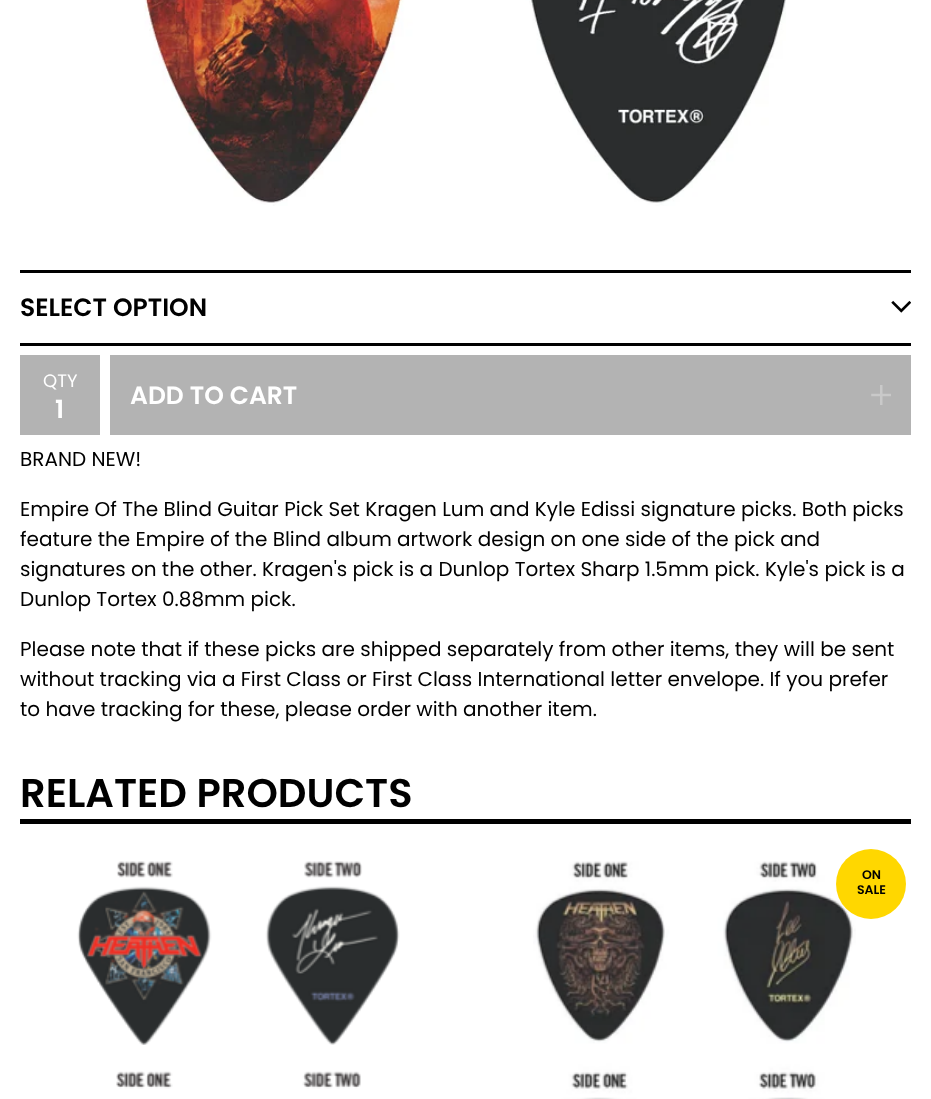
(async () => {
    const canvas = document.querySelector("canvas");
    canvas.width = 931;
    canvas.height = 1099;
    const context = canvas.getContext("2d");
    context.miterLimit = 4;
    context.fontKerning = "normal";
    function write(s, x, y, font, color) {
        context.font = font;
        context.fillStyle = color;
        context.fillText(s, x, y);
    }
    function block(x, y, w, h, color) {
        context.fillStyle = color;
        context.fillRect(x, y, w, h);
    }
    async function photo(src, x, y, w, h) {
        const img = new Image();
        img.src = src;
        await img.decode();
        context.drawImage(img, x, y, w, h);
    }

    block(0, 0, 931, 1099, "rgb(255, 255, 255)");
    await photo("media/1.png", 144, 0, 642, 206);
    block(20, 270, 891, 3, "rgb(0, 0, 0)");
    block(20, 343, 891, 3, "rgb(0, 0, 0)");
    write("SELECT OPTION", 20, 316, "600 25px Poppins", "rgb(0, 0, 0)");
    await photo("media/2.png", 891, 300, 20, 13);
    block(20, 355, 80, 80, "rgb(179, 179, 179)");
    write("QTY", 43, 387, "18px Poppins", "rgb(255, 255, 255)");
    write("1", 55, 418, "600 25px Poppins", "rgb(255, 255, 255)");
    block(110, 355, 801, 80, "rgb(179, 179, 179)");
    write("ADD TO CART", 130, 404, "600 25px Poppins", "rgb(255, 255, 255)");
    await photo("media/3.png", 871, 385, 20, 20);
    write("BRAND NEW!", 20, 466, "20px Poppins", "rgb(0, 0, 0)");
    write("Empire Of The Blind Guitar Pick Set Kragen Lum and Kyle Edissi signature picks. Both picks", 20, 516, "20px Poppins", "rgb(0, 0, 0)");
    write("feature the Empire of the Blind album artwork design on one side of the pick and", 20, 546, "20px Poppins", "rgb(0, 0, 0)");
    write("signatures on the other. Kragen's pick is a Dunlop Tortex Sharp 1.5mm pick. Kyle's pick is a", 20, 576, "20px Poppins", "rgb(0, 0, 0)");
    write("Dunlop Tortex 0.88mm pick.", 20, 606, "20px Poppins", "rgb(0, 0, 0)");
    write("Please note that if these picks are shipped separately from other items, they will be sent", 20, 656, "20px Poppins", "rgb(0, 0, 0)");
    write("without tracking via a First Class or First Class International letter envelope. If you prefer", 20, 686, "20px Poppins", "rgb(0, 0, 0)");
    write("to have tracking for these, please order with another item.", 20, 716, "20px Poppins", "rgb(0, 0, 0)");
    block(20, 819, 891, 5, "rgb(0, 0, 0)");
    write("RELATED PRODUCTS", 20, 807, "600 40px Poppins", "rgb(0, 0, 0)");
    await photo("media/4.png", 77, 861, 323, 228);
    await photo("media/5.png", 533, 861, 323, 238);
    context.fillStyle = "rgb(255, 215, 0)";
    context.beginPath();
    context.arc(871, 884, 35, 0, Math.PI * 2);
    context.fill();
    write("ON", 862, 879, "600 12.5px Poppins", "rgb(0, 0, 0)");
    write("SALE", 857, 894, "600 12.5px Poppins", "rgb(0, 0, 0)");
})();
